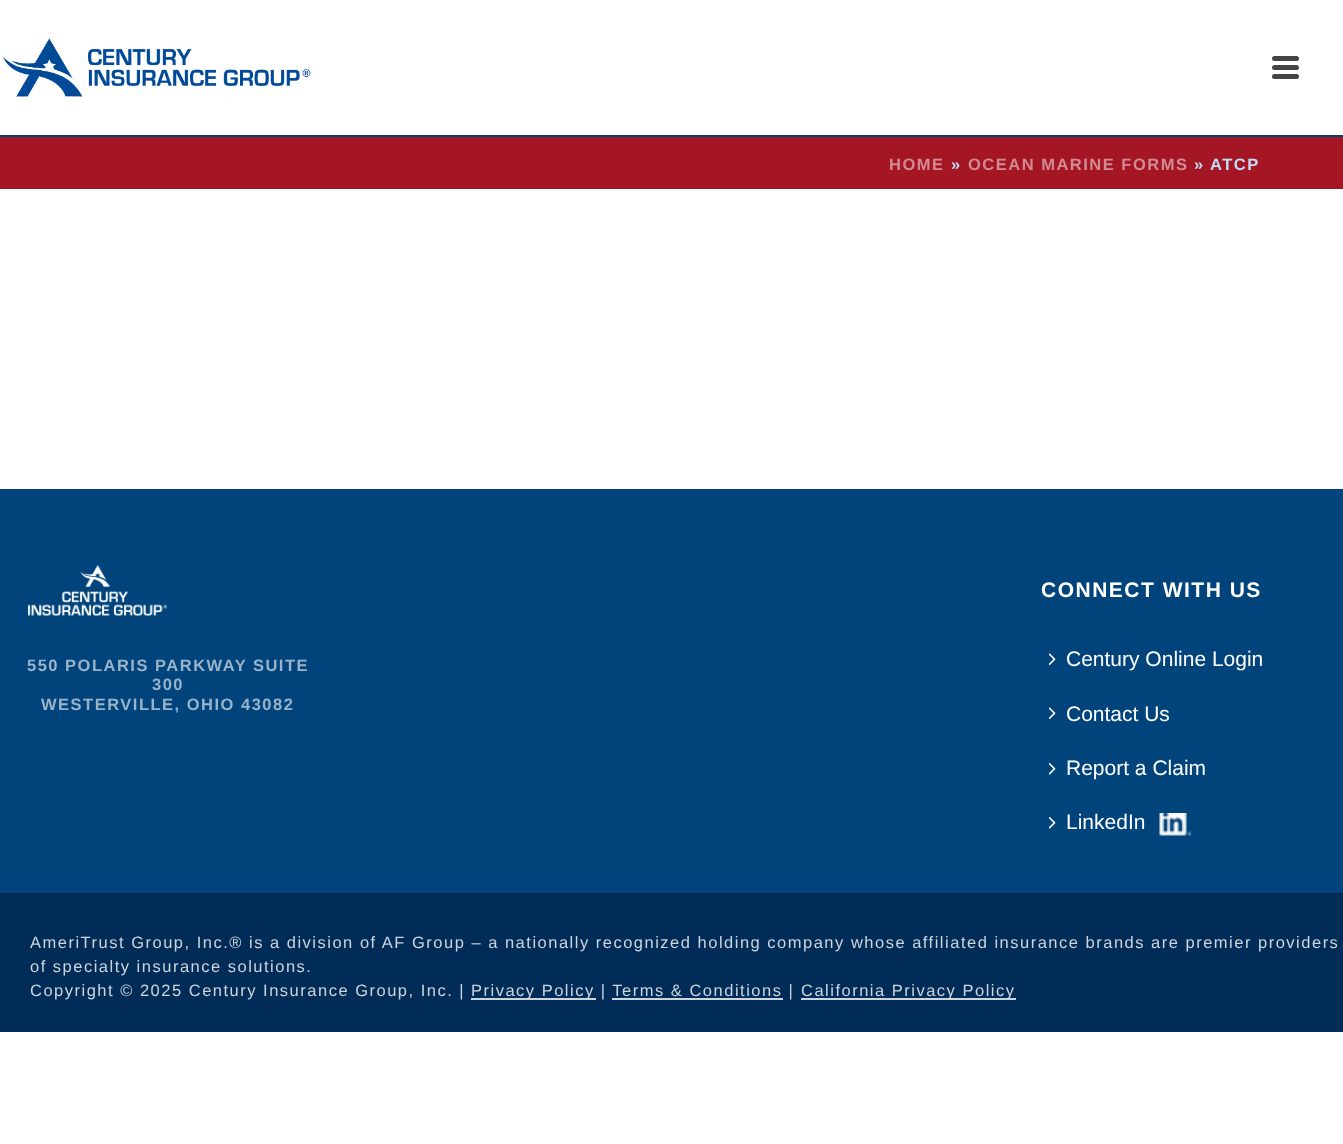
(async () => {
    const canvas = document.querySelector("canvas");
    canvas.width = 1343;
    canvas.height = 1144;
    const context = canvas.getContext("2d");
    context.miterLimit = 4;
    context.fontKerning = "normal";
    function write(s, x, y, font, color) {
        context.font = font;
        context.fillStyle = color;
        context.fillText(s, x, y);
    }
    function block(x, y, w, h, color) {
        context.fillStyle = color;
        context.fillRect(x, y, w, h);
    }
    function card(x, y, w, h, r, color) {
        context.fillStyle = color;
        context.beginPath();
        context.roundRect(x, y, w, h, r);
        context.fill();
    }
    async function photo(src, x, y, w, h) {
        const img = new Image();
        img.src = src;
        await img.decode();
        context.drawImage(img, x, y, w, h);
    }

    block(0, 0, 1343, 1144, "rgb(255, 255, 255)");
    block(0, 137, 1343, 52, "rgb(164, 22, 36)");
    block(0, 135, 1343, 2, "rgb(0, 63, 112)");
    await photo("media/1.png", 3, 38, 308, 59);
    card(1272, 56, 27, 5, 2.5, "rgb(68, 68, 68)");
    card(1272, 65, 27, 5, 2.5, "rgb(68, 68, 68)");
    card(1272, 74, 27, 5, 2.5, "rgb(68, 68, 68)");
    context.letterSpacing = "1.5px";
    write("HOME", 889, 170, "bold 16.5px Liberation Sans", "rgb(210, 139, 146)");
    write("»", 951, 170, "bold 16.5px Liberation Sans", "rgb(193, 223, 251)");
    write("OCEAN MARINE FORMS", 968, 170, "bold 16.5px Liberation Sans", "rgb(210, 139, 146)");
    write("»", 1194, 170, "bold 16.5px Liberation Sans", "rgb(193, 223, 251)");
    write("ATCP", 1210, 170, "bold 16.5px Liberation Sans", "rgb(193, 223, 251)");
    block(0, 489, 1343, 404, "rgb(0, 68, 123)");
    await photo("media/2.png", 27, 565, 140, 51);
    write("550 POLARIS PARKWAY SUITE", 27, 671, "bold 16.5px Liberation Sans", "rgb(153, 180, 202)");
    write("300", 152, 690, "bold 16.5px Liberation Sans", "rgb(153, 180, 202)");
    write("WESTERVILLE, OHIO 43082", 41, 710, "bold 16.5px Liberation Sans", "rgb(153, 180, 202)");
    write("CONNECT WITH US", 1041, 597, "bold 21px Liberation Sans", "rgb(255, 255, 255)");
    await photo("media/3.png", 1049, 653, 7, 12);
    context.letterSpacing = "0px";
    write("Century Online Login", 1066, 666, "21px Liberation Sans", "rgb(255, 255, 255)");
    await photo("media/3.png", 1049, 707, 7, 12);
    write("Contact Us", 1066, 721, "21px Liberation Sans", "rgb(255, 255, 255)");
    await photo("media/4.png", 1049, 763, 7, 12);
    write("Report a Claim", 1066, 775, "21px Liberation Sans", "rgb(255, 255, 255)");
    await photo("media/4.png", 1049, 817, 7, 12);
    write("LinkedIn", 1066, 829, "21px Liberation Sans", "rgb(255, 255, 255)");
    await photo("media/5.png", 1159, 813, 32, 23);
    block(0, 893, 1343, 139, "rgb(0, 44, 87)");
    context.letterSpacing = "1.5px";
    write("AmeriTrust Group, Inc.® is a division of AF Group – a nationally recognized holding company whose affiliated insurance brands are premier providers", 30, 948, "16.5px Liberation Sans", "rgb(204, 213, 221)");
    write("of specialty insurance solutions.", 30, 972, "16.5px Liberation Sans", "rgb(204, 213, 221)");
    write("Copyright © 2025 Century Insurance Group, Inc. |", 30, 996, "16.5px Liberation Sans", "rgb(204, 213, 221)");
    block(471, 998, 125, 2, "rgb(204, 213, 221)");
    write("Privacy Policy | Terms & Conditions |", 471, 996, "16.5px Liberation Sans", "rgb(204, 213, 221)");
    block(801, 998, 215, 2, "rgb(204, 213, 221)");
    write("California Privacy Policy", 801, 996, "16.5px Liberation Sans", "rgb(204, 213, 221)");
    block(612, 998, 171, 2, "rgb(204, 213, 221)");
})();
